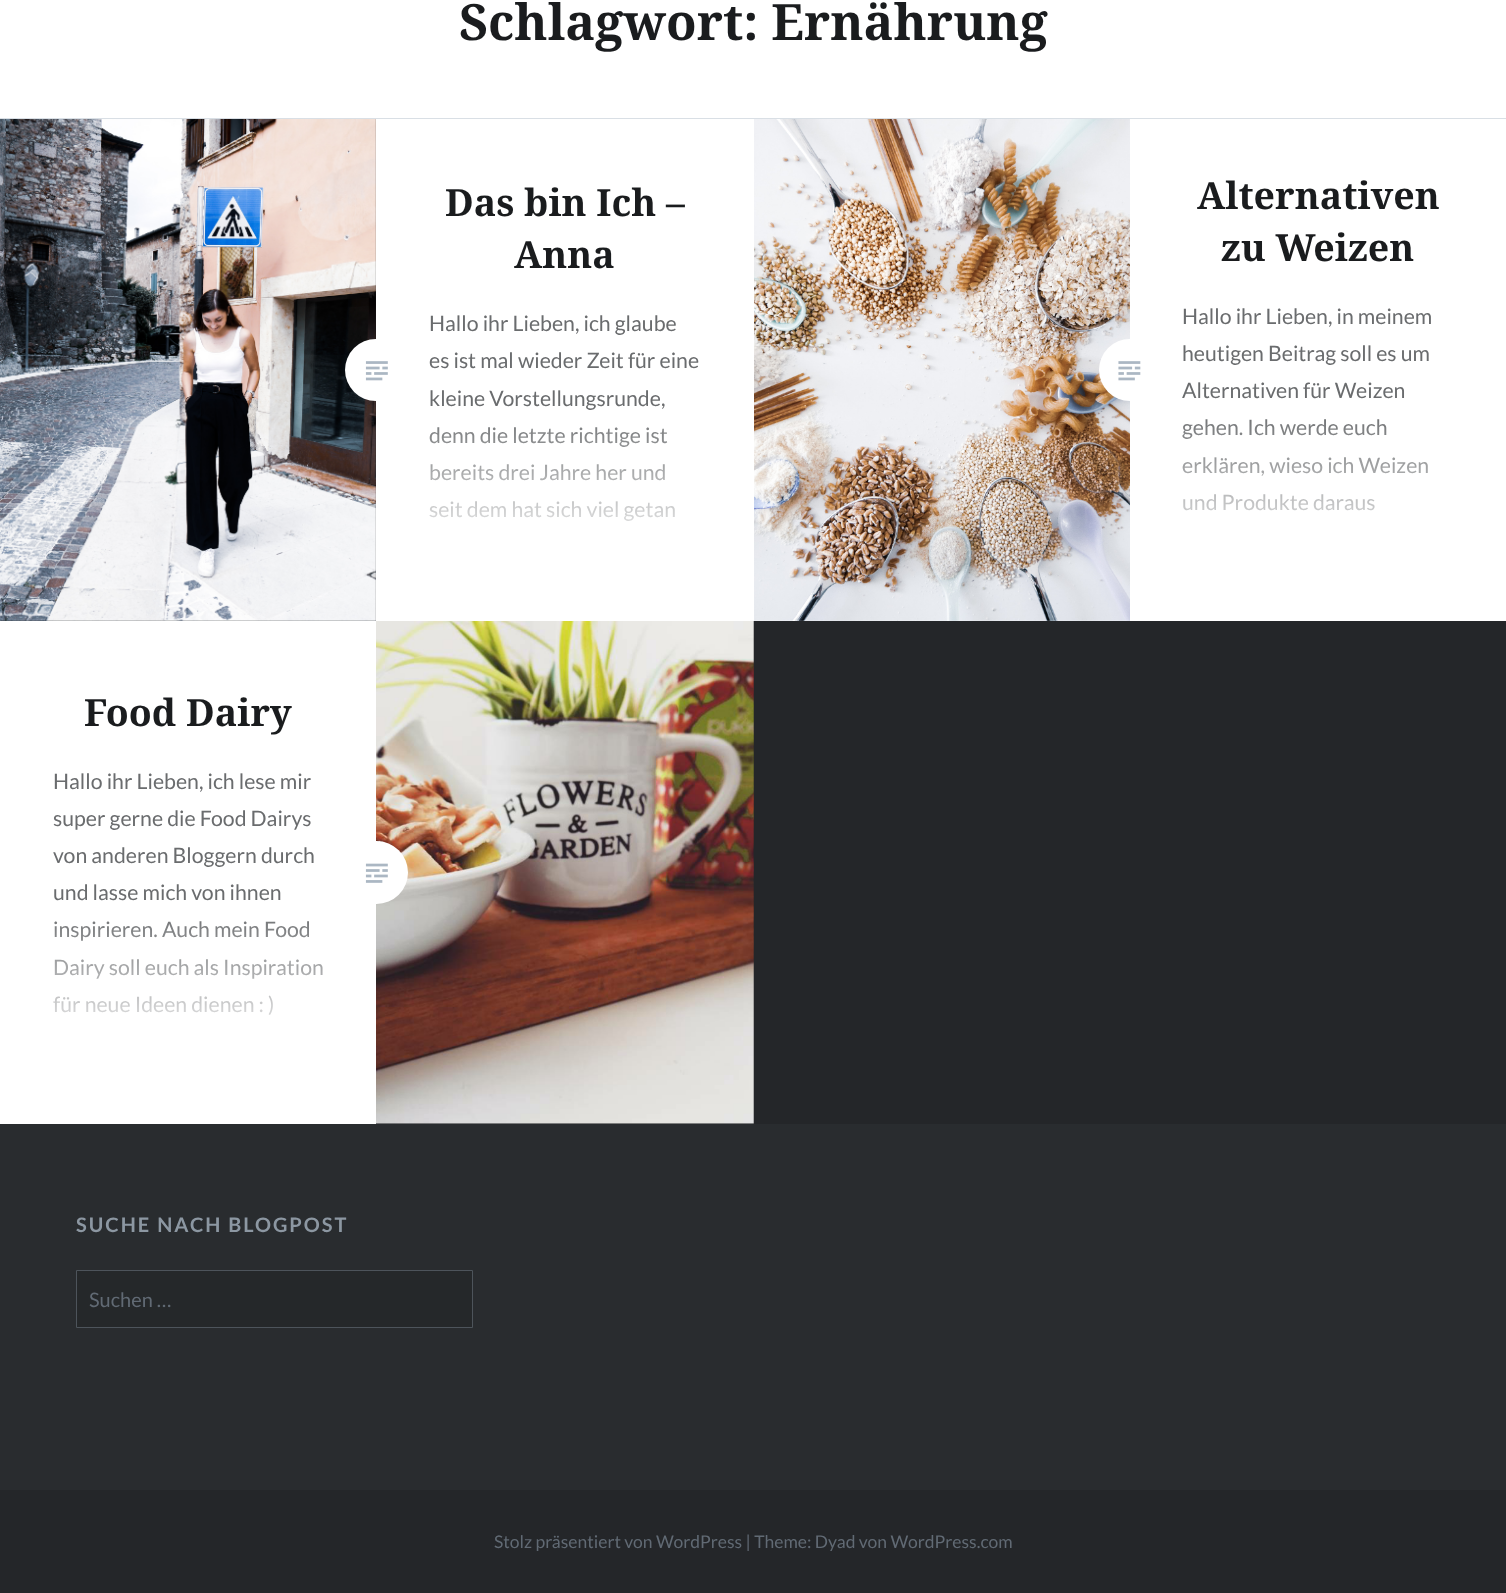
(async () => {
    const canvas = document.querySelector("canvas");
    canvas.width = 1506;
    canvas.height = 1593;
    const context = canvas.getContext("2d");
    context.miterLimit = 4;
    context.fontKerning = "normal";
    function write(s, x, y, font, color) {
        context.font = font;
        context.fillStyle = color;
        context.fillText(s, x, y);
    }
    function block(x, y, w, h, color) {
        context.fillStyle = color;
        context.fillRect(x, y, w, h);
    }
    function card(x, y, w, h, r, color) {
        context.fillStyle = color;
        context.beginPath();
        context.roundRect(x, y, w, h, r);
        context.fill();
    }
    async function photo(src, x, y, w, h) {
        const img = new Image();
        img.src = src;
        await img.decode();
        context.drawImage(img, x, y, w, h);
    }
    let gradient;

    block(0, 0, 1506, 1593, "rgb(36, 38, 41)");
    block(0, 0, 1506, 118, "rgb(255, 255, 255)");
    block(0, 118, 1506, 1, "rgb(217, 223, 229)");
    write("Schlagwort: Ernährung", 459, 40, "bold 50px Noto Serif", "rgb(26, 28, 30)");
    await photo("media/1.png", 0, 119, 376, 502);
    block(376, 119, 1130, 502, "rgb(255, 255, 255)");
    card(345, 339, 63, 62, 31, "rgb(255, 255, 255)");
    write("Das bin Ich –", 445, 216, "bold 37.5px Noto Serif", "rgb(26, 28, 30)");
    write("Anna", 514, 268, "bold 37.5px Noto Serif", "rgb(26, 28, 30)");
    write("Hallo ihr Lieben, ich glaube", 429, 331, "21.25px Lato", "rgb(106, 108, 110)");
    write("es ist mal wieder Zeit für eine", 429, 368, "21.25px Lato", "rgb(106, 108, 110)");
    write("kleine Vorstellungsrunde,", 429, 406, "21.25px Lato", "rgb(106, 108, 110)");
    write("denn die letzte richtige ist", 429, 443, "21.25px Lato", "rgb(106, 108, 110)");
    write("bereits drei Jahre her und", 429, 480, "21.25px Lato", "rgb(106, 108, 110)");
    write("seit dem hat sich viel getan", 429, 517, "21.25px Lato", "rgb(106, 108, 110)");
    gradient = context.createLinearGradient(565, 406, 565, 560);
    gradient.addColorStop(0, "rgba(255, 255, 255, 0)");
    gradient.addColorStop(1, "rgb(255, 255, 255)");
    context.fillStyle = gradient;
    context.fillRect(430, 409, 245, 112);
    await photo("media/2.png", 365, 361, 23, 20);
    await photo("media/3.png", 754, 119, 376, 502);
    context.fillStyle = "rgb(255, 255, 255)";
    context.beginPath();
    context.arc(1130, 370, 31, 0, Math.PI * 2);
    context.fill();
    write("Alternativen", 1197, 209, "bold 37.5px Noto Serif", "rgb(26, 28, 30)");
    write("zu Weizen", 1221, 261, "bold 37.5px Noto Serif", "rgb(26, 28, 30)");
    write("Hallo ihr Lieben, in meinem", 1182, 324, "21.25px Lato", "rgb(106, 108, 110)");
    write("heutigen Beitrag soll es um", 1182, 361, "21.25px Lato", "rgb(106, 108, 110)");
    write("Alternativen für Weizen", 1182, 398, "21.25px Lato", "rgb(106, 108, 110)");
    write("gehen. Ich werde euch", 1182, 435, "21.25px Lato", "rgb(106, 108, 110)");
    write("erklären, wieso ich Weizen", 1182, 473, "21.25px Lato", "rgb(106, 108, 110)");
    write("und Produkte daraus", 1182, 510, "21.25px Lato", "rgb(106, 108, 110)");
    gradient = context.createLinearGradient(1318, 408, 1318, 567);
    gradient.addColorStop(0, "rgba(255, 255, 255, 0)");
    gradient.addColorStop(1, "rgb(255, 255, 255)");
    context.fillStyle = gradient;
    context.fillRect(1183, 419, 246, 92);
    await photo("media/4.png", 1118, 361, 23, 20);
    block(0, 621, 376, 503, "rgb(255, 255, 255)");
    write("Food Dairy", 84, 726, "bold 37.5px Noto Serif", "rgb(26, 28, 30)");
    write("Hallo ihr Lieben, ich lese mir", 53, 789, "21.25px Lato", "rgb(106, 108, 110)");
    write("super gerne die Food Dairys", 53, 826, "21.25px Lato", "rgb(106, 108, 110)");
    write("von anderen Bloggern durch", 53, 863, "21.25px Lato", "rgb(106, 108, 110)");
    write("und lasse mich von ihnen", 53, 900, "21.25px Lato", "rgb(106, 108, 110)");
    write("inspirieren. Auch mein Food", 53, 937, "21.25px Lato", "rgb(106, 108, 110)");
    write("Dairy soll euch als Inspiration", 53, 975, "21.25px Lato", "rgb(106, 108, 110)");
    write("für neue Ideen dienen : )", 53, 1012, "21.25px Lato", "rgb(106, 108, 110)");
    gradient = context.createLinearGradient(188, 908, 188, 1055);
    gradient.addColorStop(0, "rgba(255, 255, 255, 0)");
    gradient.addColorStop(1, "rgb(255, 255, 255)");
    context.fillStyle = gradient;
    context.fillRect(53, 921, 270, 94);
    await photo("media/6.png", 376, 621, 378, 503);
    context.fillStyle = "rgb(255, 255, 255)";
    context.beginPath();
    context.arc(376.5, 872.5, 31.5, 0, Math.PI * 2);
    context.fill();
    await photo("media/5.png", 365, 863, 23, 20);
    block(0, 1124, 1506, 366, "rgb(41, 44, 47)");
    context.letterSpacing = "2px";
    write("SUCHE NACH BLOGPOST", 76, 1232, "bold 20px Lato", "rgb(140, 151, 162)");
    context.fillStyle = "rgb(37, 40, 42)";
    context.beginPath();
    context.rect(76.5, 1270.5, 396, 57);
    context.fill();
    context.strokeStyle = "rgb(77, 84, 91)";
    context.stroke();
    context.letterSpacing = "0px";
    write("Suchen …", 89, 1307, "20px Lato", "rgb(97, 106, 116)");
    write("Stolz präsentiert von WordPress | Theme: Dyad von WordPress.com", 494, 1548, "17.5px Lato", "rgb(97, 106, 116)");
})();
